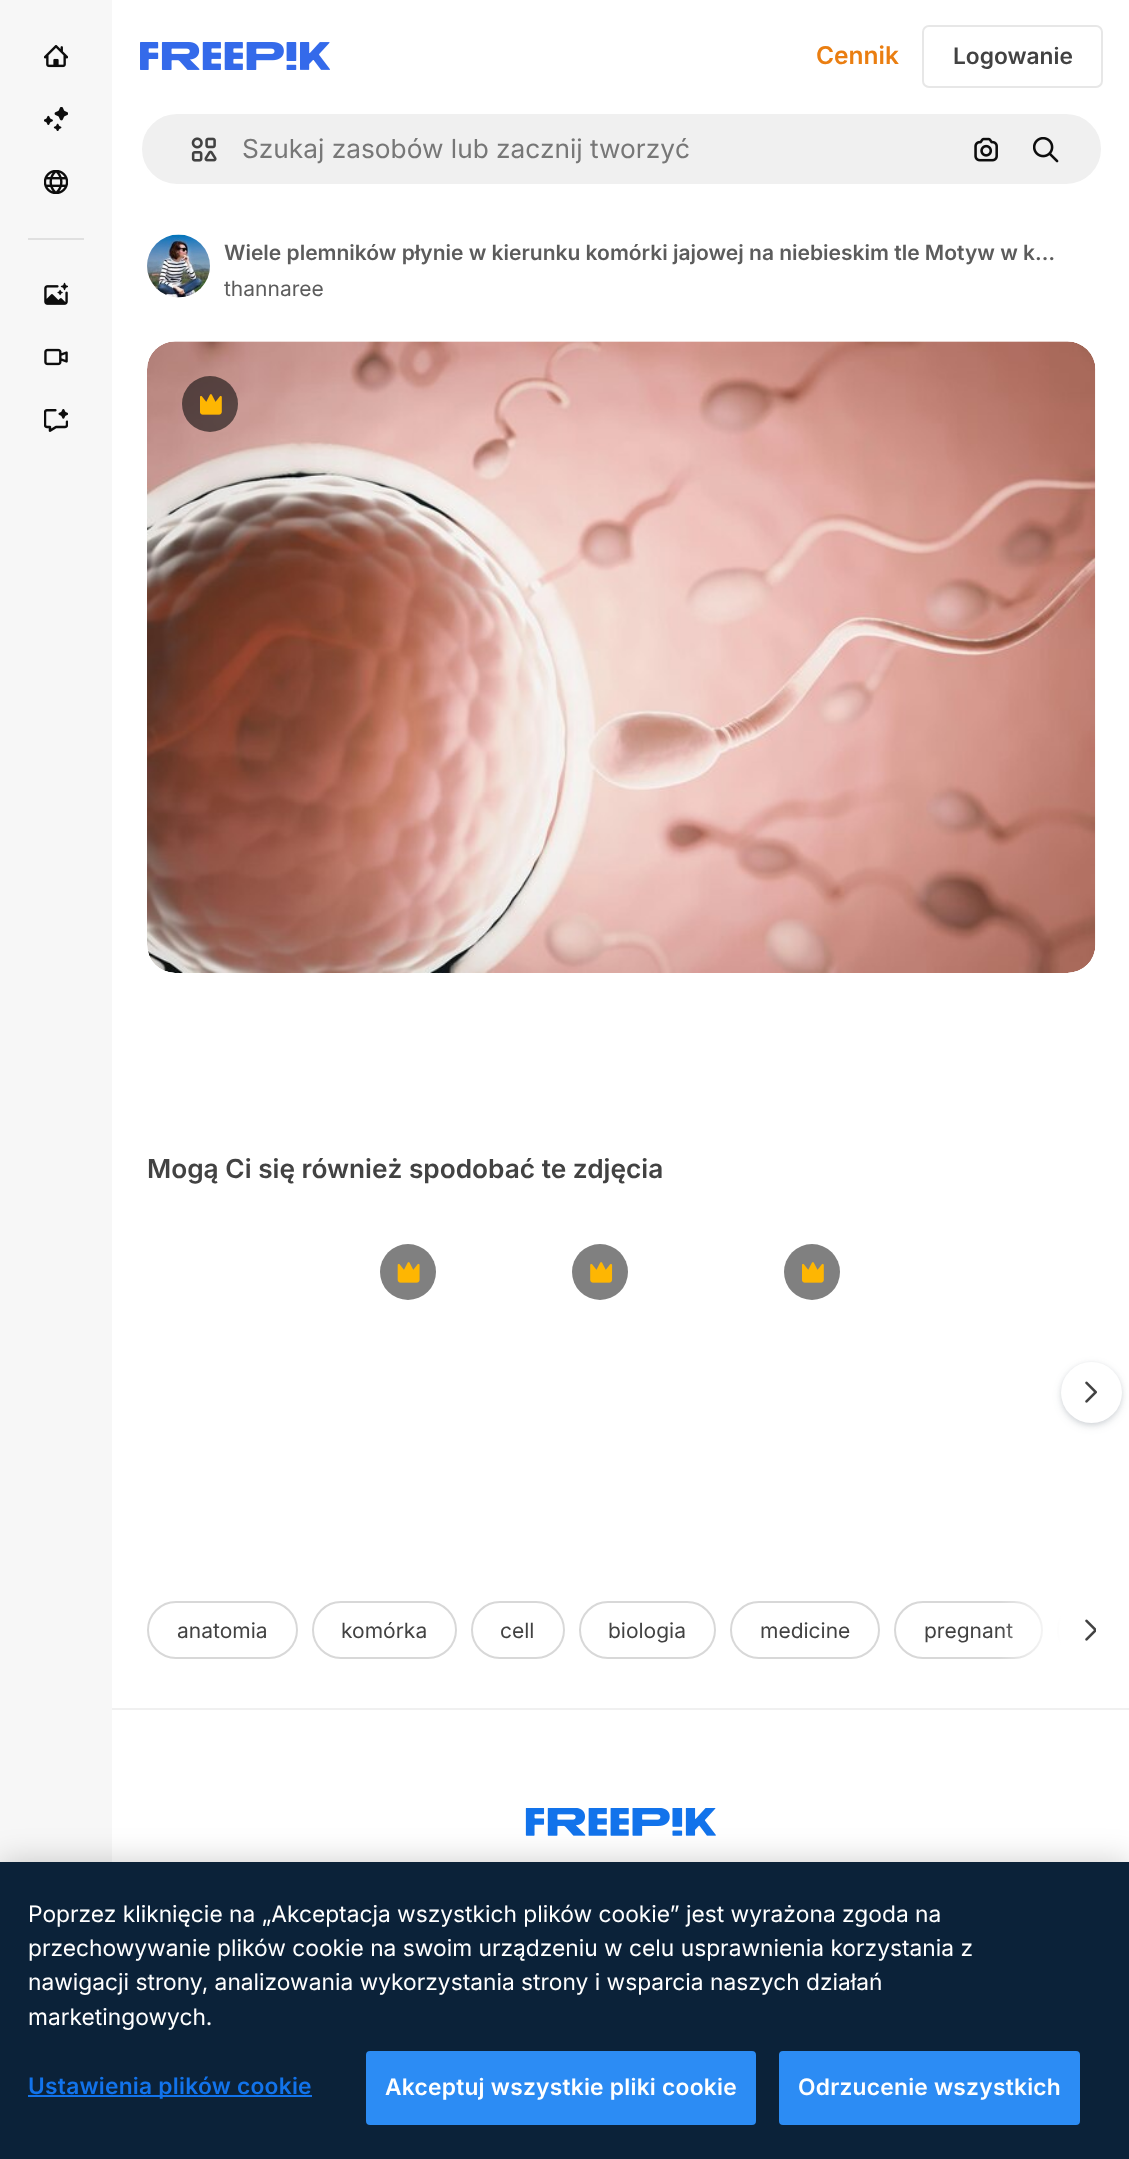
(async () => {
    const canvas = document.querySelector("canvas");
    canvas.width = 1129;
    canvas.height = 2159;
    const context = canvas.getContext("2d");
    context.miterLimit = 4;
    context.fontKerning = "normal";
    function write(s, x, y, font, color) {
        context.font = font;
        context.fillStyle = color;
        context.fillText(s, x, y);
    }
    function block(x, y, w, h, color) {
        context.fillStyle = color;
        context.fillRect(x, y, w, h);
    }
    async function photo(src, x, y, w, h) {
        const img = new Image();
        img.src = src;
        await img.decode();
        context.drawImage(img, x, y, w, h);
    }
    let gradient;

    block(0, 0, 1129, 2159, "rgb(255, 255, 255)");
    block(0, 0, 112, 1862, "rgb(247, 247, 247)");
    await photo("media/1.png", 44, 45, 24, 23);
    await photo("media/2.png", 44, 107, 24, 24);
    await photo("media/3.png", 44, 170, 24, 24);
    block(28, 238, 56, 2, "rgb(224, 224, 224)");
    await photo("media/4.png", 44, 282, 24, 23);
    await photo("media/5.png", 44, 348, 24, 18);
    await photo("media/6.png", 44, 409, 24, 23);
    await photo("media/7.png", 140, 42, 190, 28);
    write("Cennik", 816, 64, "600 24.5px Inter", "rgb(234, 126, 17)");
    context.beginPath();
    context.roundRect(923, 26, 179, 61, 6);
    context.strokeStyle = "rgb(231, 231, 231)";
    context.lineWidth = 2;
    context.stroke();
    write("Logowanie", 953, 64, "600 22.75px Inter", "rgb(66, 66, 66)");
    context.fillStyle = "rgb(240, 240, 240)";
    context.beginPath();
    context.roundRect(141, 113, 961, 72, 36);
    context.fill();
    context.strokeStyle = "rgb(255, 255, 255)";
    context.stroke();
    await photo("media/8.png", 191, 137, 26, 25);
    write("Szukaj zasobów lub zacznij tworzyć", 242, 158, "26.25px Inter", "rgb(119, 119, 119)");
    await photo("media/9.png", 974, 137, 24, 25);
    await photo("media/10.png", 1033, 137, 26, 26);
    await photo("media/11.png", 147, 234, 63, 64);
    write("Wiele plemników płynie w kierunku komórki jajowej na niebieskim tle Motyw w k…", 224, 260, "600 21px Inter", "rgb(92, 92, 92)");
    write("thannaree", 224, 296, "21px Inter", "rgb(92, 92, 92)");
    await photo("media/12.png", 147, 341, 949, 632);
    context.fillStyle = "rgba(13, 13, 13, 0.6)";
    context.beginPath();
    context.arc(210, 404, 28, 0, Math.PI * 2);
    context.fill();
    await photo("media/13.png", 200, 394, 22, 21);
    write("Mogą Ci się również spodobać te zdjęcia", 147, 1178, "600 26.25px Inter", "rgb(66, 66, 66)");
    context.fillStyle = "rgb(128, 128, 128)";
    context.beginPath();
    context.arc(408, 1272, 28, 0, Math.PI * 2);
    context.fill();
    await photo("media/14.png", 397, 1262, 23, 21);
    context.beginPath();
    context.arc(600, 1272, 28, 0, Math.PI * 2);
    context.fill();
    await photo("media/15.png", 590, 1262, 23, 21);
    context.beginPath();
    context.arc(812, 1272, 28, 0, Math.PI * 2);
    context.fill();
    await photo("media/16.png", 802, 1262, 22, 21);
    context.fillStyle = "rgba(55, 73, 87, 0.15)";
    context.filter = "blur(4.5px)";
    context.beginPath();
    context.roundRect(1061, 1365, 61, 61, 30.5);
    context.fill();
    context.filter = "none";
    context.fillStyle = "rgba(55, 73, 87, 0.1)";
    context.filter = "blur(2px)";
    context.beginPath();
    context.roundRect(1061, 1363, 61, 62, 30.5);
    context.fill();
    context.filter = "none";
    context.fillStyle = "rgb(255, 255, 255)";
    context.beginPath();
    context.arc(1091.5, 1392.5, 30.5, 0, Math.PI * 2);
    context.fill();
    await photo("media/17.png", 1085, 1381, 12, 22);
    context.beginPath();
    context.roundRect(148, 1602, 149, 56, 28);
    context.strokeStyle = "rgb(216, 216, 216)";
    context.stroke();
    write("anatomia", 177, 1638, "21px Inter", "rgb(66, 66, 66)");
    context.beginPath();
    context.roundRect(313, 1602, 143, 56, 28);
    context.stroke();
    write("komórka", 341, 1638, "21px Inter", "rgb(66, 66, 66)");
    context.beginPath();
    context.roundRect(472, 1602, 92, 56, 28);
    context.stroke();
    write("cell", 500, 1638, "21px Inter", "rgb(66, 66, 66)");
    context.beginPath();
    context.roundRect(580, 1602, 135, 56, 28);
    context.stroke();
    write("biologia", 608, 1638, "21px Inter", "rgb(66, 66, 66)");
    context.beginPath();
    context.roundRect(731, 1602, 148, 56, 28);
    context.stroke();
    write("medicine", 760, 1638, "21px Inter", "rgb(66, 66, 66)");
    context.beginPath();
    context.roundRect(895, 1602, 147, 56, 28);
    context.stroke();
    write("pregnant", 924, 1638, "21px Inter", "rgb(66, 66, 66)");
    context.save();
    context.beginPath();
    context.rect(147, 1601, 949, 58);
    context.clip();
    context.beginPath();
    context.roundRect(1058, 1602, 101, 56, 28);
    context.stroke();
    context.restore();
    block(1061, 1601, 35, 58, "rgb(255, 255, 255)");
    gradient = context.createLinearGradient(1061, 1630, 999, 1630);
    gradient.addColorStop(0, "rgb(255, 255, 255)");
    gradient.addColorStop(1, "rgba(255, 255, 255, 0)");
    context.fillStyle = gradient;
    context.fillRect(1000, 1601, 61, 58);
    await photo("media/18.png", 1085, 1619, 11, 22);
    block(112, 1708, 1017, 2, "rgb(240, 240, 240)");
    await photo("media/19.png", 525, 1808, 191, 28);
    context.fillStyle = "rgba(0, 0, 0, 0.2)";
    context.filter = "blur(16px)";
    context.beginPath();
    context.rect(0, 1862, 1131, 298);
    context.fill();
    context.filter = "none";
    block(0, 1862, 1129, 297, "rgb(11, 34, 57)");
    write("Poprzez kliknięcie na „Akceptacja wszystkich plików cookie” jest wyrażona zgoda na", 28, 1922, "22.75px Inter", "rgb(255, 255, 255)");
    write("przechowywanie plików cookie na swoim urządzeniu w celu usprawnienia korzystania z", 28, 1956, "22.75px Inter", "rgb(255, 255, 255)");
    write("nawigacji strony, analizowania wykorzystania strony i wsparcia naszych działań", 28, 1990, "22.75px Inter", "rgb(255, 255, 255)");
    write("marketingowych.", 28, 2025, "22.75px Inter", "rgb(255, 255, 255)");
    block(28, 2095, 284, 2, "rgb(18, 115, 235)");
    context.letterSpacing = "0.25px";
    write("Ustawienia plików cookie", 28, 2094, "600 22.75px Inter", "rgb(18, 115, 235)");
    context.fillStyle = "rgb(44, 140, 244)";
    context.beginPath();
    context.roundRect(367, 2052, 388, 72, 3);
    context.fill();
    context.strokeStyle = "rgb(44, 140, 244)";
    context.stroke();
    write("Akceptuj wszystkie pliki cookie", 385, 2095, "600 22.75px Inter", "rgb(255, 255, 255)");
    context.fillStyle = "rgb(44, 140, 244)";
    context.beginPath();
    context.roundRect(780, 2052, 299, 72, 3);
    context.fill();
    context.stroke();
    write("Odrzucenie wszystkich", 798, 2095, "600 22.75px Inter", "rgb(255, 255, 255)");
})();
